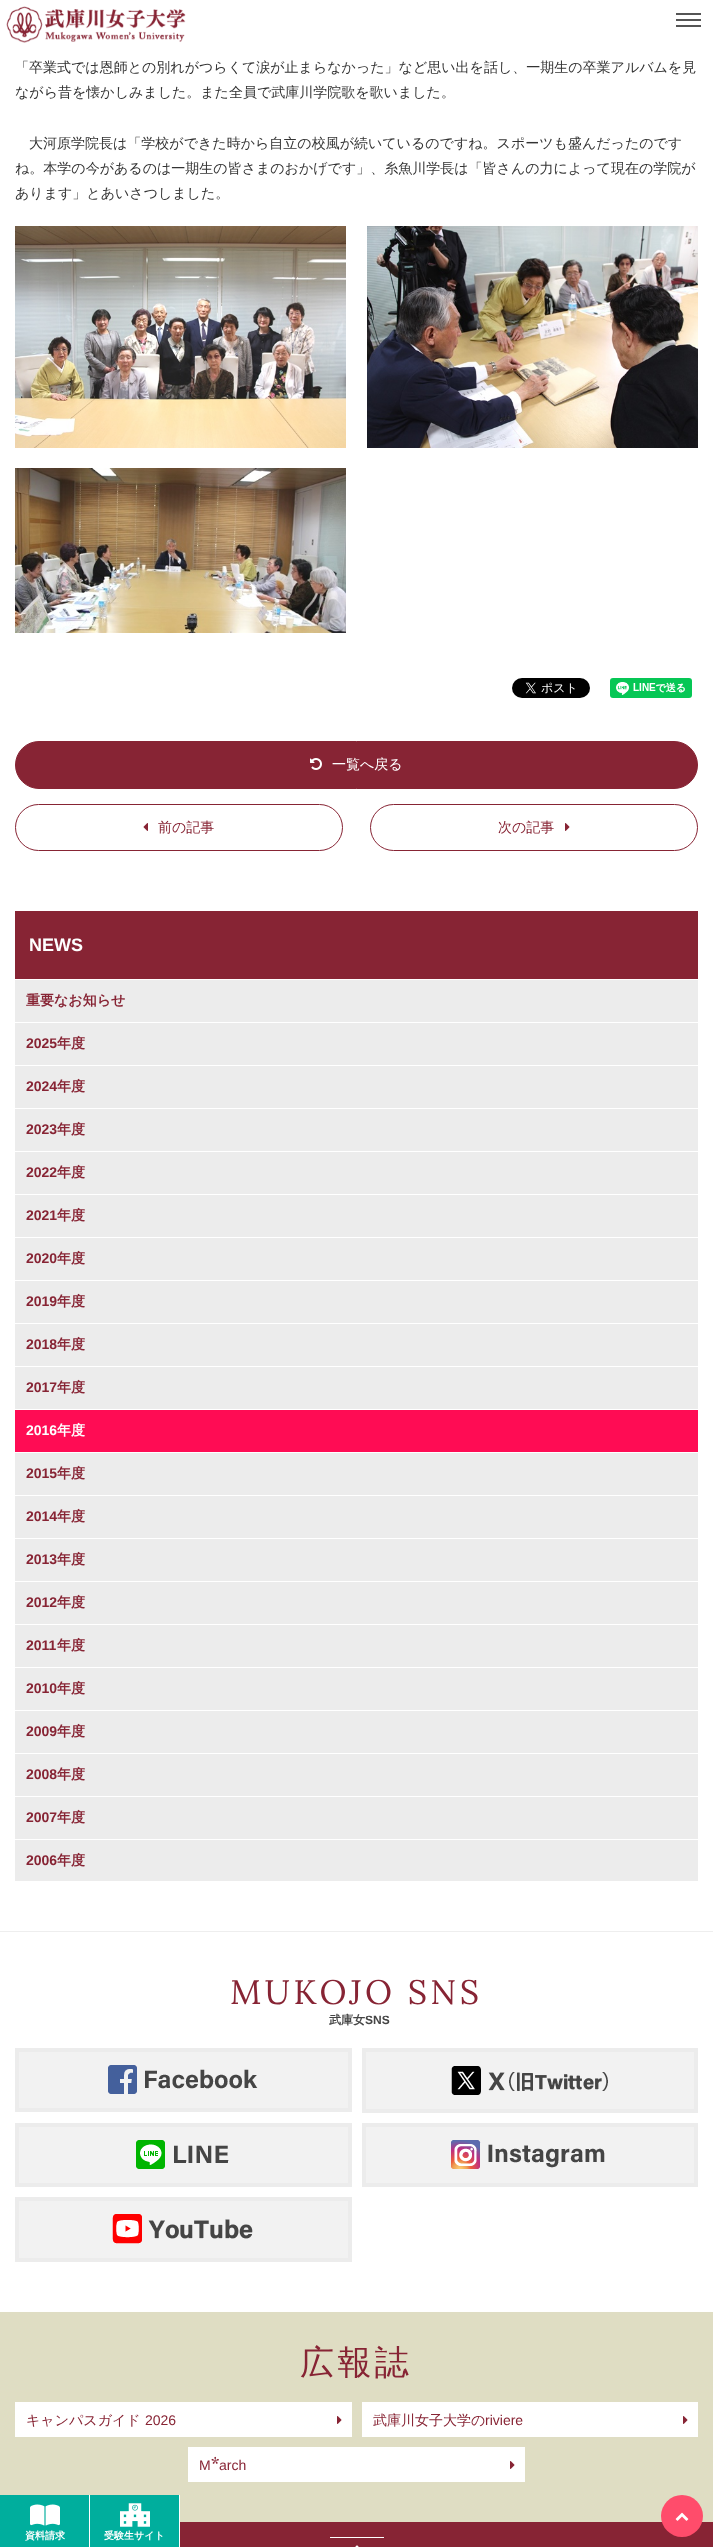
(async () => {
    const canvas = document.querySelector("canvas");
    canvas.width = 713;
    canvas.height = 2547;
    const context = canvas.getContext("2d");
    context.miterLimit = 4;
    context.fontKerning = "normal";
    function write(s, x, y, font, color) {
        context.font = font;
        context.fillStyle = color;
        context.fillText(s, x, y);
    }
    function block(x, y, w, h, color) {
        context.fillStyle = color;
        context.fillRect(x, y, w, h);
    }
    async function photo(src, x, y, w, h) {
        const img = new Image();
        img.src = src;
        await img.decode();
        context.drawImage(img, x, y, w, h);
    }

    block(0, 0, 713, 2547, "rgb(255, 255, 255)");
    await photo("media/1.png", 6, 6, 180, 37);
    block(676, 19, 25, 2, "rgb(85, 85, 85)");
    block(676, 13, 25, 2, "rgb(85, 85, 85)");
    block(676, 25, 25, 2, "rgb(85, 85, 85)");
    write("「卒業式では恩師との別れがつらくて涙が止まらなかった」など思い出を話し、一期生の卒業アルバムを見", 15, 72, "500 14px WenQuanYi Zen Hei", "rgb(51, 51, 51)");
    write("ながら昔を懐かしみました。また全員で武庫川学院歌を歌いました。", 15, 97, "500 14px WenQuanYi Zen Hei", "rgb(51, 51, 51)");
    write("大河原学院長は「学校ができた時から自立の校風が続いているのですね。スポーツも盛んだったのです", 29, 148, "500 14px WenQuanYi Zen Hei", "rgb(51, 51, 51)");
    write("ね。本学の今があるのは一期生の皆さまのおかげです」、糸魚川学長は「皆さんの力によって現在の学院が", 15, 173, "500 14px WenQuanYi Zen Hei", "rgb(51, 51, 51)");
    write("あります」とあいさつしました。", 15, 198, "500 14px WenQuanYi Zen Hei", "rgb(51, 51, 51)");
    await photo("media/2.png", 15, 226, 331, 222);
    await photo("media/3.png", 367, 226, 331, 222);
    await photo("media/4.png", 15, 468, 331, 165);
    await photo("media/5.png", 512, 678, 78, 20);
    await photo("media/6.png", 610, 678, 82, 20);
    context.fillStyle = "rgb(135, 36, 52)";
    context.beginPath();
    context.roundRect(15.5, 741.5, 682, 47, 23.5);
    context.fill();
    context.strokeStyle = "rgb(135, 36, 52)";
    context.stroke();
    await photo("media/7.png", 310, 758, 12, 12);
    write("一覧へ戻る", 332, 769, "500 14px WenQuanYi Zen Hei", "rgb(255, 255, 255)");
    context.beginPath();
    context.roundRect(15.5, 804.5, 327, 46, 23);
    context.stroke();
    await photo("media/8.png", 143, 823, 5, 8);
    write("前の記事", 158, 832, "500 14px WenQuanYi Zen Hei", "rgb(135, 36, 52)");
    context.beginPath();
    context.roundRect(370.5, 804.5, 327, 46, 23);
    context.stroke();
    write("次の記事", 498, 832, "500 14px WenQuanYi Zen Hei", "rgb(135, 36, 52)");
    await photo("media/9.png", 565, 823, 5, 8);
    block(15, 911, 683, 68, "rgb(135, 36, 52)");
    write("NEWS", 29, 951, "bold 18px Liberation Sans", "rgb(255, 255, 255)");
    block(15, 980, 683, 42, "rgb(236, 236, 236)");
    write("重要なお知らせ", 26, 1005, "bold 14px WenQuanYi Zen Hei", "rgb(135, 36, 52)");
    block(15, 1023, 683, 42, "rgb(236, 236, 236)");
    write("2025", 26, 1048, "bold 14px Liberation Sans", "rgb(135, 36, 52)");
    write("年度", 57, 1048, "bold 14px WenQuanYi Zen Hei", "rgb(135, 36, 52)");
    block(15, 1066, 683, 42, "rgb(236, 236, 236)");
    write("2024", 26, 1091, "bold 14px Liberation Sans", "rgb(135, 36, 52)");
    write("年度", 57, 1091, "bold 14px WenQuanYi Zen Hei", "rgb(135, 36, 52)");
    block(15, 1109, 683, 42, "rgb(236, 236, 236)");
    write("2023", 26, 1134, "bold 14px Liberation Sans", "rgb(135, 36, 52)");
    write("年度", 57, 1134, "bold 14px WenQuanYi Zen Hei", "rgb(135, 36, 52)");
    block(15, 1152, 683, 42, "rgb(236, 236, 236)");
    write("2022", 26, 1177, "bold 14px Liberation Sans", "rgb(135, 36, 52)");
    write("年度", 57, 1177, "bold 14px WenQuanYi Zen Hei", "rgb(135, 36, 52)");
    block(15, 1195, 683, 42, "rgb(236, 236, 236)");
    write("2021", 26, 1220, "bold 14px Liberation Sans", "rgb(135, 36, 52)");
    write("年度", 57, 1220, "bold 14px WenQuanYi Zen Hei", "rgb(135, 36, 52)");
    block(15, 1238, 683, 42, "rgb(236, 236, 236)");
    write("2020", 26, 1263, "bold 14px Liberation Sans", "rgb(135, 36, 52)");
    write("年度", 57, 1263, "bold 14px WenQuanYi Zen Hei", "rgb(135, 36, 52)");
    block(15, 1281, 683, 42, "rgb(236, 236, 236)");
    write("2019", 26, 1306, "bold 14px Liberation Sans", "rgb(135, 36, 52)");
    write("年度", 57, 1306, "bold 14px WenQuanYi Zen Hei", "rgb(135, 36, 52)");
    block(15, 1324, 683, 42, "rgb(236, 236, 236)");
    write("2018", 26, 1349, "bold 14px Liberation Sans", "rgb(135, 36, 52)");
    write("年度", 57, 1349, "bold 14px WenQuanYi Zen Hei", "rgb(135, 36, 52)");
    block(15, 1367, 683, 42, "rgb(236, 236, 236)");
    write("2017", 26, 1392, "bold 14px Liberation Sans", "rgb(135, 36, 52)");
    write("年度", 57, 1392, "bold 14px WenQuanYi Zen Hei", "rgb(135, 36, 52)");
    block(15, 1410, 683, 42, "rgb(255, 12, 84)");
    write("2016", 26, 1435, "bold 14px Liberation Sans", "rgb(255, 255, 255)");
    write("年度", 57, 1435, "bold 14px WenQuanYi Zen Hei", "rgb(255, 255, 255)");
    block(15, 1453, 683, 42, "rgb(236, 236, 236)");
    write("2015", 26, 1478, "bold 14px Liberation Sans", "rgb(135, 36, 52)");
    write("年度", 57, 1478, "bold 14px WenQuanYi Zen Hei", "rgb(135, 36, 52)");
    block(15, 1496, 683, 42, "rgb(236, 236, 236)");
    write("2014", 26, 1521, "bold 14px Liberation Sans", "rgb(135, 36, 52)");
    write("年度", 57, 1521, "bold 14px WenQuanYi Zen Hei", "rgb(135, 36, 52)");
    block(15, 1539, 683, 42, "rgb(236, 236, 236)");
    write("2013", 26, 1564, "bold 14px Liberation Sans", "rgb(135, 36, 52)");
    write("年度", 57, 1564, "bold 14px WenQuanYi Zen Hei", "rgb(135, 36, 52)");
    block(15, 1582, 683, 42, "rgb(236, 236, 236)");
    write("2012", 26, 1607, "bold 14px Liberation Sans", "rgb(135, 36, 52)");
    write("年度", 57, 1607, "bold 14px WenQuanYi Zen Hei", "rgb(135, 36, 52)");
    block(15, 1625, 683, 42, "rgb(236, 236, 236)");
    write("2011", 26, 1650, "bold 14px Liberation Sans", "rgb(135, 36, 52)");
    write("年度", 57, 1650, "bold 14px WenQuanYi Zen Hei", "rgb(135, 36, 52)");
    block(15, 1668, 683, 42, "rgb(236, 236, 236)");
    write("2010", 26, 1693, "bold 14px Liberation Sans", "rgb(135, 36, 52)");
    write("年度", 57, 1693, "bold 14px WenQuanYi Zen Hei", "rgb(135, 36, 52)");
    block(15, 1711, 683, 42, "rgb(236, 236, 236)");
    write("2009", 26, 1736, "bold 14px Liberation Sans", "rgb(135, 36, 52)");
    write("年度", 57, 1736, "bold 14px WenQuanYi Zen Hei", "rgb(135, 36, 52)");
    block(15, 1754, 683, 42, "rgb(236, 236, 236)");
    write("2008", 26, 1779, "bold 14px Liberation Sans", "rgb(135, 36, 52)");
    write("年度", 57, 1779, "bold 14px WenQuanYi Zen Hei", "rgb(135, 36, 52)");
    block(15, 1797, 683, 42, "rgb(236, 236, 236)");
    write("2007", 26, 1822, "bold 14px Liberation Sans", "rgb(135, 36, 52)");
    write("年度", 57, 1822, "bold 14px WenQuanYi Zen Hei", "rgb(135, 36, 52)");
    block(15, 1840, 683, 41, "rgb(236, 236, 236)");
    write("2006", 26, 1865, "bold 14px Liberation Sans", "rgb(135, 36, 52)");
    write("年度", 57, 1865, "bold 14px WenQuanYi Zen Hei", "rgb(135, 36, 52)");
    block(0, 1931, 713, 1, "rgb(238, 238, 238)");
    context.letterSpacing = "3.4px";
    write("MUKOJO SNS", 230, 2004, "34px Lora", "rgb(135, 36, 52)");
    context.letterSpacing = "0px";
    write("武庫女", 329, 2024, "bold 12px WenQuanYi Zen Hei", "rgb(69, 69, 69)");
    write("SNS", 365, 2024, "bold 12px Liberation Sans", "rgb(69, 69, 69)");
    context.fillStyle = "rgb(242, 242, 242)";
    context.beginPath();
    context.rect(17, 2050, 333, 60);
    context.fill();
    context.strokeStyle = "rgb(236, 236, 236)";
    context.lineWidth = 4;
    context.stroke();
    await photo("media/10.png", 108, 2065, 150, 29);
    context.beginPath();
    context.rect(364, 2050, 332, 61);
    context.fill();
    context.stroke();
    await photo("media/11.png", 451, 2066, 157, 29);
    context.beginPath();
    context.rect(17, 2125, 333, 60);
    context.fill();
    context.stroke();
    await photo("media/12.png", 136, 2140, 93, 29);
    context.beginPath();
    context.rect(364, 2125, 332, 60);
    context.fill();
    context.stroke();
    await photo("media/13.png", 451, 2140, 154, 29);
    context.beginPath();
    context.rect(17, 2199, 333, 61);
    context.fill();
    context.stroke();
    await photo("media/14.png", 112, 2214, 141, 30);
    block(0, 2312, 713, 210, "rgb(223, 221, 195)");
    context.letterSpacing = "3.4px";
    write("広報誌", 300, 2374, "500 34px WenQuanYi Zen Hei", "rgb(135, 36, 52)");
    block(15, 2402, 337, 35, "rgb(255, 255, 255)");
    context.letterSpacing = "0px";
    write("キャンパスガイド", 26, 2425, "500 14px WenQuanYi Zen Hei", "rgb(135, 36, 52)");
    write("2026", 145, 2425, "14px Liberation Sans", "rgb(135, 36, 52)");
    await photo("media/9.png", 337, 2416, 5, 8);
    block(362, 2402, 336, 35, "rgb(255, 255, 255)");
    write("武庫川女子大学の", 373, 2425, "500 14px WenQuanYi Zen Hei", "rgb(135, 36, 52)");
    write("riviere", 485, 2425, "14px Liberation Sans", "rgb(135, 36, 52)");
    await photo("media/9.png", 683, 2416, 5, 8);
    block(188, 2447, 337, 35, "rgb(255, 255, 255)");
    write("M", 199, 2470, "14px Liberation Sans", "rgb(135, 36, 52)");
    await photo("media/15.png", 211, 2456, 8, 8);
    write("arch", 219, 2470, "14px Liberation Sans", "rgb(135, 36, 52)");
    await photo("media/9.png", 510, 2461, 5, 8);
    block(180, 2522, 533, 25, "rgb(135, 36, 52)");
    context.fillStyle = "rgb(255, 76, 107)";
    context.beginPath();
    context.arc(682, 2516, 21, 0, Math.PI * 2);
    context.fill();
    await photo("media/16.png", 675, 2512, 14, 9);
    block(89, 2495, 1, 27, "rgb(255, 255, 255)");
    block(0, 2495, 89, 52, "rgb(0, 174, 157)");
    await photo("media/17.png", 30, 2504, 30, 22);
    write("資料請求", 25, 2539, "bold 10px WenQuanYi Zen Hei", "rgb(255, 255, 255)");
    block(179, 2495, 1, 27, "rgb(255, 255, 255)");
    block(90, 2495, 89, 52, "rgb(0, 174, 157)");
    await photo("media/18.png", 120, 2503, 30, 24);
    write("受験生サイト", 104, 2539, "bold 10px WenQuanYi Zen Hei", "rgb(255, 255, 255)");
    await photo("media/19.png", 330, 2537, 54, 10);
})();
